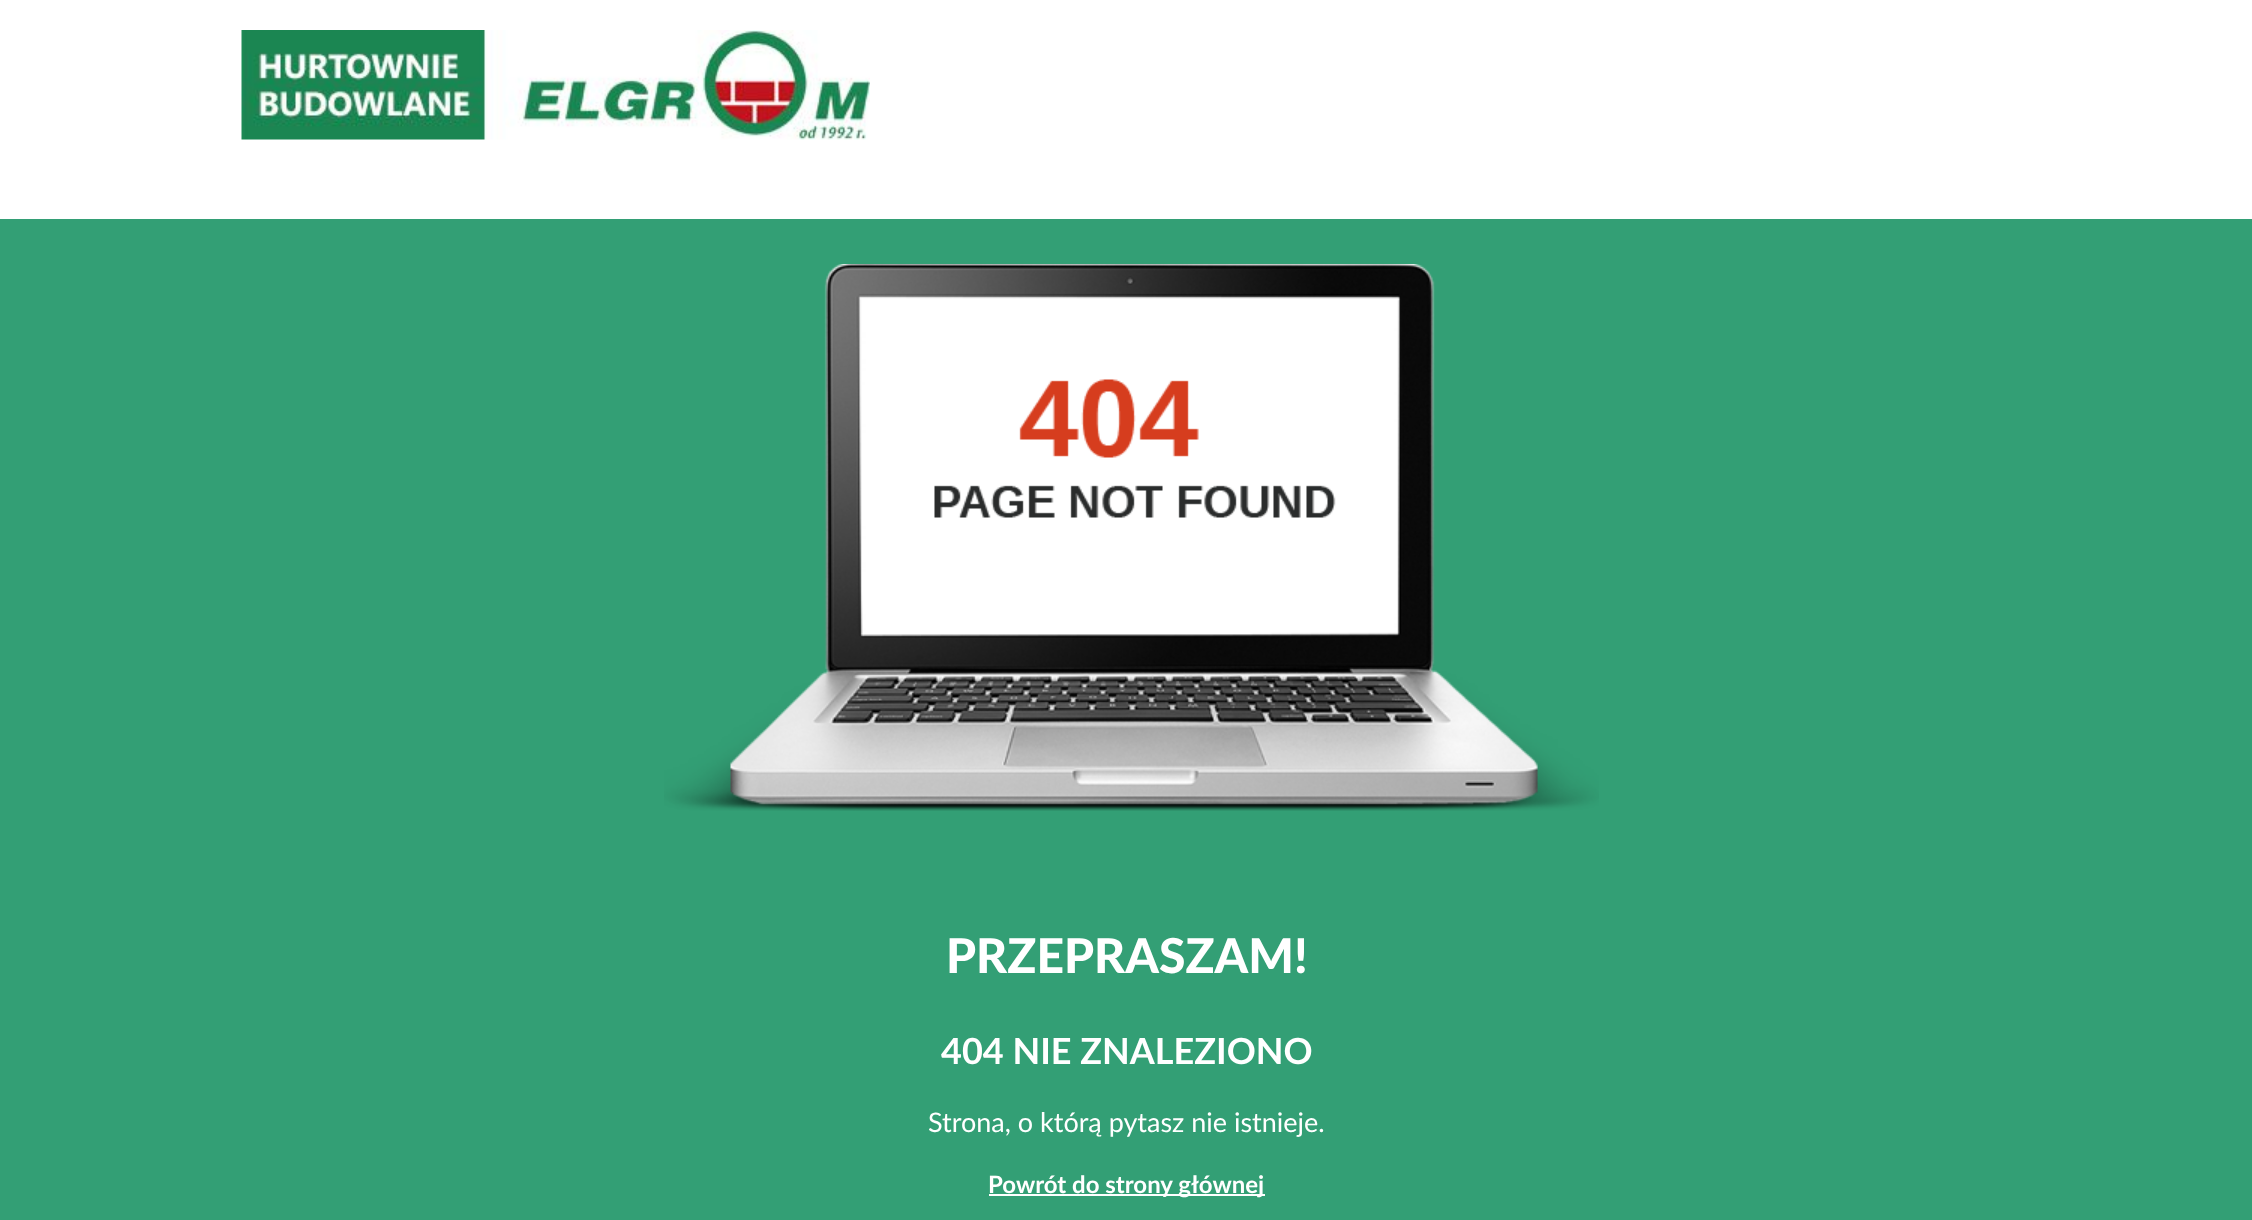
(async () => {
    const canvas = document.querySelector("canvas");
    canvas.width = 2252;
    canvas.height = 1220;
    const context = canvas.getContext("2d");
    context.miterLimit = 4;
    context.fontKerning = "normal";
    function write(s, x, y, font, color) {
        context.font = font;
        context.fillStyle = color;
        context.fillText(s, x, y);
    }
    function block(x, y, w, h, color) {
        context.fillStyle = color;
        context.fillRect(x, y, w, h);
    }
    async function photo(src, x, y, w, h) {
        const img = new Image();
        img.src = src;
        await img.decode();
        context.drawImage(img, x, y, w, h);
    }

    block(0, 0, 2252, 1220, "rgb(255, 255, 255)");
    await photo("media/1.png", 241, 30, 629, 110);
    block(0, 219, 2252, 1001, "rgb(51, 159, 117)");
    await photo("media/2.png", 664, 264, 935, 547);
    write("PRZEPRASZAM!", 946, 973, "900 48px Lato", "rgb(255, 255, 255)");
    write("404 NIE ZNALEZIONO", 941, 1064, "bold 36px Lato", "rgb(255, 255, 255)");
    write("Strona, o którą pytasz nie istnieje.", 928, 1132, "27px Lato", "rgb(255, 255, 255)");
    block(989, 1194, 276, 2, "rgb(255, 255, 255)");
    write("Powrót do strony głównej", 988, 1193, "bold 24px Lato", "rgb(255, 255, 255)");
})();
